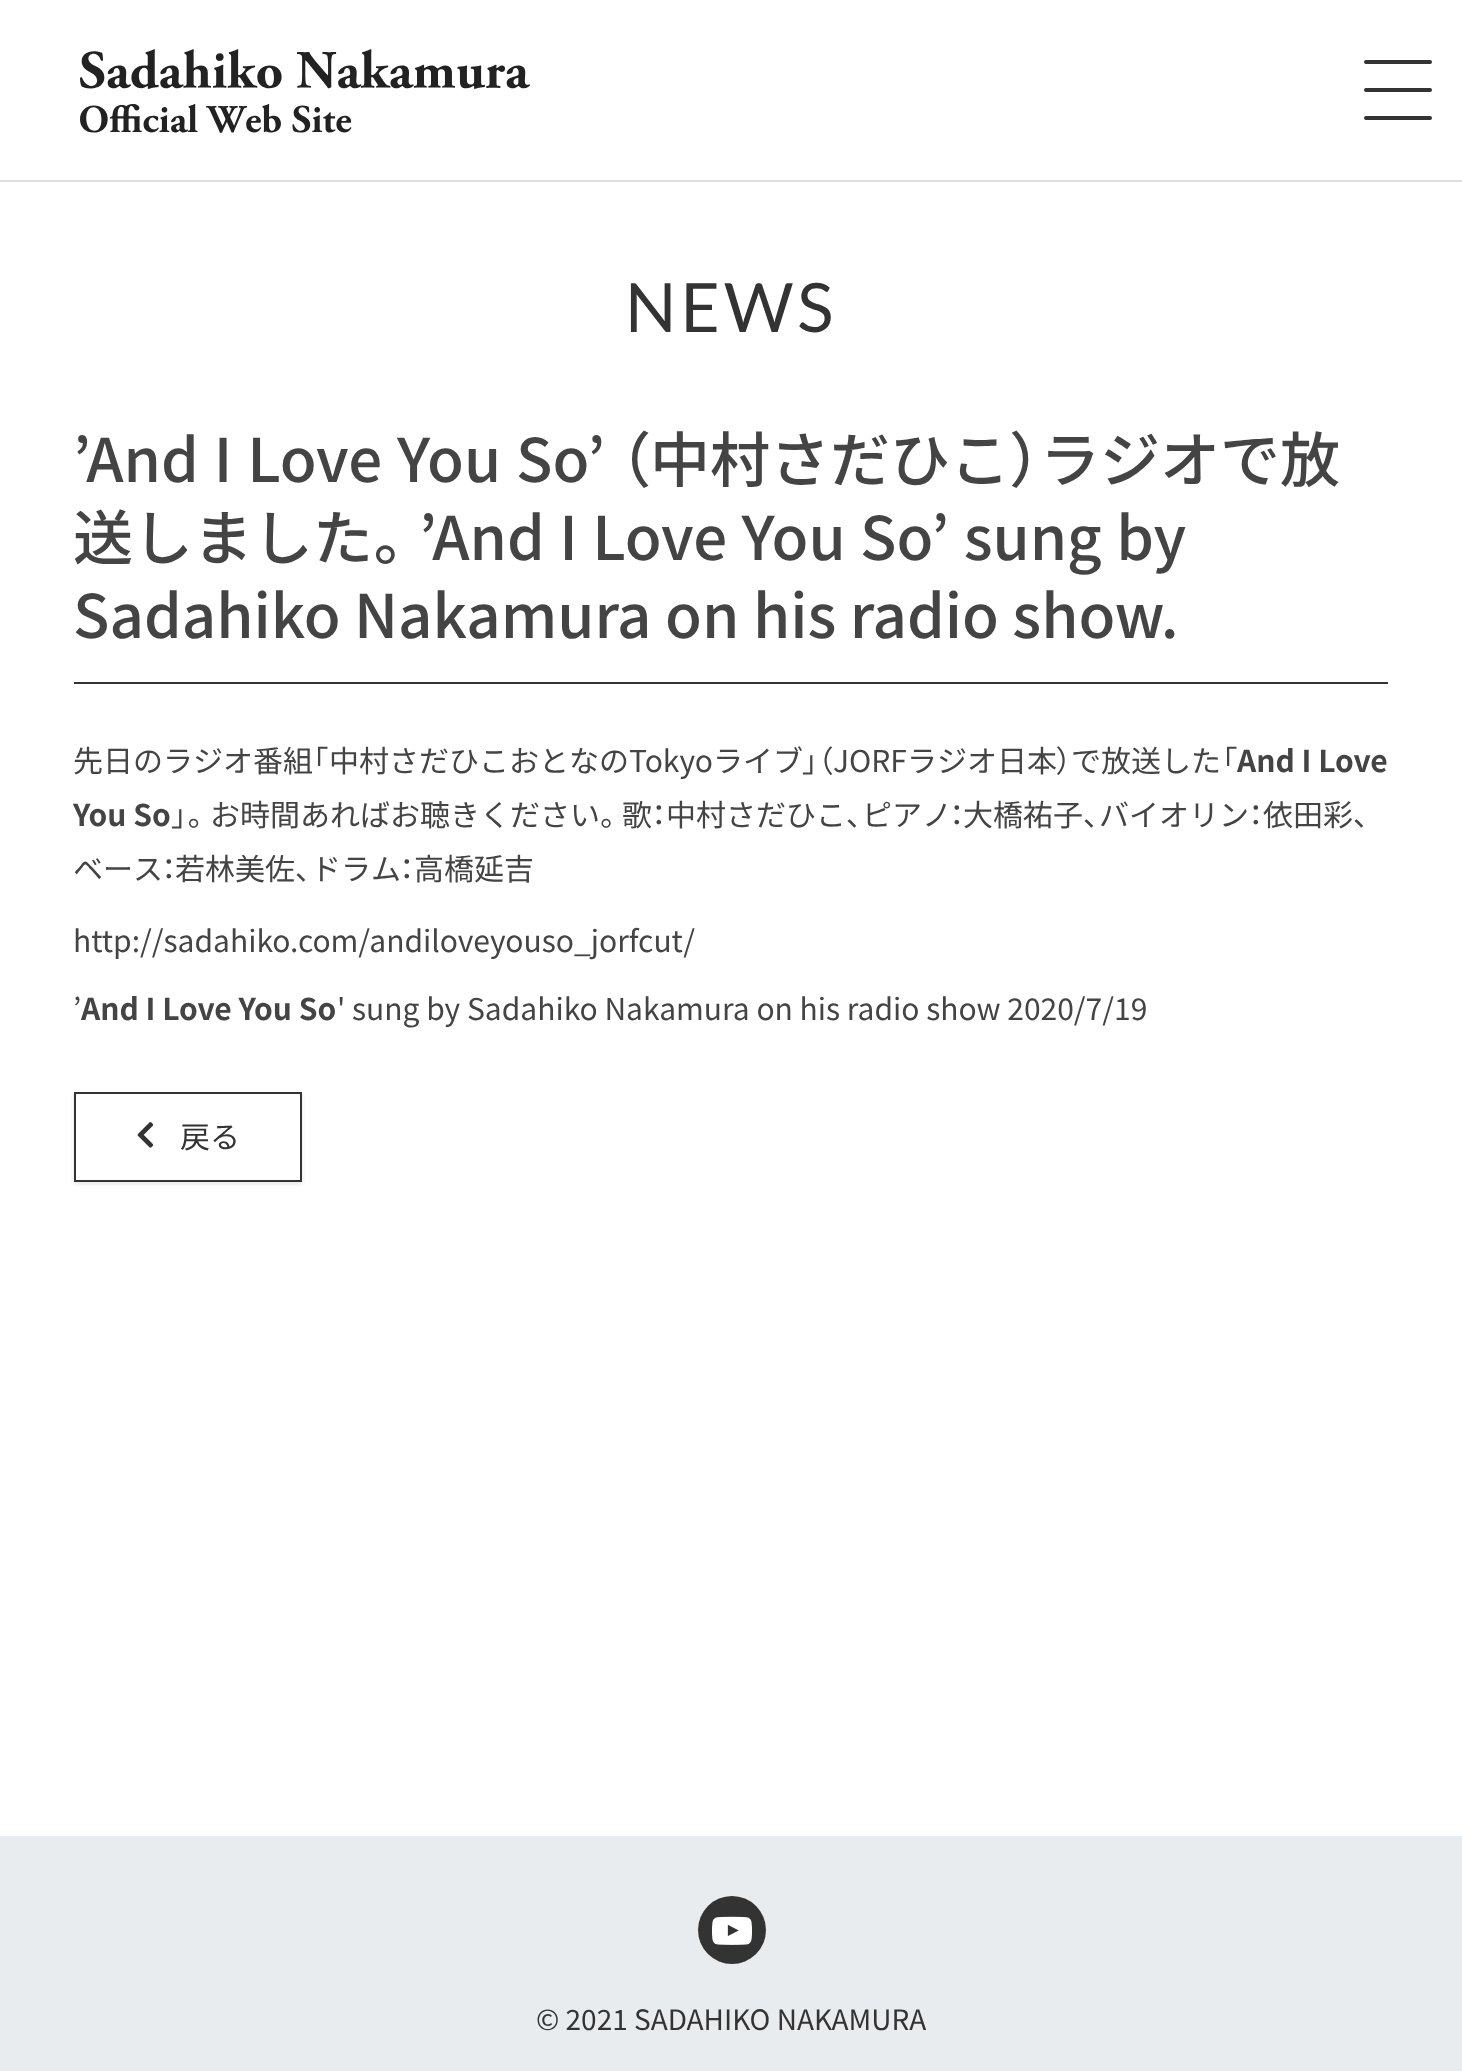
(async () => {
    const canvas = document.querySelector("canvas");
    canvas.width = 1462;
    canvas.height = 2071;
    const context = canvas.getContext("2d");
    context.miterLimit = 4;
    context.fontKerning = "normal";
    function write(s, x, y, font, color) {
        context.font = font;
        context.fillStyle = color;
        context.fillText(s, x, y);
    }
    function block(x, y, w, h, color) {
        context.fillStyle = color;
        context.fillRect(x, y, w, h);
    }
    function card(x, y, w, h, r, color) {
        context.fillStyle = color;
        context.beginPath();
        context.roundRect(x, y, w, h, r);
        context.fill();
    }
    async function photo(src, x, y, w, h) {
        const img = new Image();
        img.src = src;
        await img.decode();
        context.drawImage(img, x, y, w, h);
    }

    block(0, 0, 1462, 2071, "rgb(255, 255, 255)");
    block(0, 180, 1462, 2, "rgb(221, 221, 221)");
    await photo("media/1.png", 80, 49, 450, 84);
    card(1364, 60, 68, 4, 2, "rgb(51, 51, 51)");
    card(1364, 88, 68, 4, 2, "rgb(51, 51, 51)");
    card(1364, 116, 68, 4, 2, "rgb(51, 51, 51)");
    context.letterSpacing = "4px";
    write("NEWS", 625, 332, "68px Lato", "rgb(51, 51, 51)");
    block(74, 682, 1314, 2, "rgb(51, 51, 51)");
    context.letterSpacing = "0px";
    context.wordSpacing = "1.5px";
    write("’And I Love You So’", 73, 482, "500 60px Noto Sans JP", "rgb(68, 68, 68)");
    context.wordSpacing = "0px";
    write("（", 620, 482, "500 60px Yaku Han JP", "rgb(68, 68, 68)");
    write("中村さだひこ", 650, 482, "500 60px Noto Sans JP", "rgb(68, 68, 68)");
    write("）", 1010, 482, "500 60px Yaku Han JP", "rgb(68, 68, 68)");
    write("ラジオで放", 1040, 482, "500 60px Noto Sans JP", "rgb(68, 68, 68)");
    write("送しました", 73, 560, "500 60px Noto Sans JP", "rgb(68, 68, 68)");
    write("。", 373, 560, "500 60px Yaku Han JP", "rgb(68, 68, 68)");
    context.wordSpacing = "1px";
    write("’And I Love You So’ sung by", 419, 560, "500 60px Noto Sans JP", "rgb(68, 68, 68)");
    context.wordSpacing = "0px";
    write("Sadahiko Nakamura on his radio show.", 73, 638, "500 60px Noto Sans JP", "rgb(68, 68, 68)");
    write("先日のラジオ番組", 73, 772, "30px Noto Sans JP", "rgb(68, 68, 68)");
    write("「", 312, 772, "30px Yaku Han JP", "rgb(68, 68, 68)");
    write("中村さだひこおとなのTokyoライブ", 329, 772, "30px Noto Sans JP", "rgb(68, 68, 68)");
    write("」（", 802, 772, "30px Yaku Han JP", "rgb(68, 68, 68)");
    write("JORFラジオ日本", 833, 772, "30px Noto Sans JP", "rgb(68, 68, 68)");
    write("）", 1056, 772, "30px Yaku Han JP", "rgb(68, 68, 68)");
    write("で放送した", 1071, 772, "30px Noto Sans JP", "rgb(68, 68, 68)");
    write("「", 1221, 772, "30px Yaku Han JP", "rgb(68, 68, 68)");
    write("And I Love", 1237, 772, "bold 30px Noto Sans JP", "rgb(68, 68, 68)");
    write("You So", 73, 826, "bold 30px Noto Sans JP", "rgb(68, 68, 68)");
    write("」。", 171, 826, "30px Yaku Han JP", "rgb(68, 68, 68)");
    write("お時間あればお聴きください", 210, 826, "30px Noto Sans JP", "rgb(68, 68, 68)");
    write("。", 600, 826, "30px Yaku Han JP", "rgb(68, 68, 68)");
    write("歌", 622, 826, "30px Noto Sans JP", "rgb(68, 68, 68)");
    write("：", 652, 826, "30px Yaku Han JP", "rgb(68, 68, 68)");
    write("中村さだひこ", 666, 826, "30px Noto Sans JP", "rgb(68, 68, 68)");
    write("、", 846, 826, "30px Yaku Han JP", "rgb(68, 68, 68)");
    write("ピアノ", 862, 826, "30px Noto Sans JP", "rgb(68, 68, 68)");
    write("：", 950, 826, "30px Yaku Han JP", "rgb(68, 68, 68)");
    write("大橋祐子", 963, 826, "30px Noto Sans JP", "rgb(68, 68, 68)");
    write("、", 1083, 826, "30px Yaku Han JP", "rgb(68, 68, 68)");
    write("バイオリン", 1099, 826, "30px Noto Sans JP", "rgb(68, 68, 68)");
    write("：", 1249, 826, "30px Yaku Han JP", "rgb(68, 68, 68)");
    write("依田彩", 1263, 826, "30px Noto Sans JP", "rgb(68, 68, 68)");
    write("、", 1353, 826, "30px Yaku Han JP", "rgb(68, 68, 68)");
    write("ベース", 73, 880, "30px Noto Sans JP", "rgb(68, 68, 68)");
    write("：", 162, 880, "30px Yaku Han JP", "rgb(68, 68, 68)");
    write("若林美佐", 175, 880, "30px Noto Sans JP", "rgb(68, 68, 68)");
    write("、", 295, 880, "30px Yaku Han JP", "rgb(68, 68, 68)");
    write("ドラム", 311, 880, "30px Noto Sans JP", "rgb(68, 68, 68)");
    write("：", 400, 880, "30px Yaku Han JP", "rgb(68, 68, 68)");
    write("高橋延吉", 414, 880, "30px Noto Sans JP", "rgb(68, 68, 68)");
    write("http://sadahiko.com/andiloveyouso_jorfcut/", 73, 952, "30px Noto Sans JP", "rgb(68, 68, 68)");
    write("’", 73, 1020, "30px Noto Sans JP", "rgb(68, 68, 68)");
    write("And I Love You So", 81, 1020, "bold 30px Noto Sans JP", "rgb(68, 68, 68)");
    write("' sung by Sadahiko Nakamura on his radio show 2020/7/19", 337, 1020, "30px Noto Sans JP", "rgb(68, 68, 68)");
    context.save();
    context.beginPath();
    context.moveTo(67, 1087);
    context.lineTo(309, 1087);
    context.lineTo(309, 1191);
    context.lineTo(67, 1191);
    context.closePath();
    context.moveTo(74, 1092);
    context.lineTo(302, 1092);
    context.lineTo(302, 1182);
    context.lineTo(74, 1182);
    context.closePath();
    context.clip("evenodd");
    context.fillStyle = "rgba(0, 0, 0, 0.1)";
    context.filter = "blur(2px)";
    context.beginPath();
    context.rect(74, 1094, 228, 90);
    context.fill();
    context.filter = "none";
    context.restore();
    context.strokeStyle = "rgb(51, 51, 51)";
    context.lineWidth = 2;
    context.strokeRect(75, 1093, 226, 88);
    await photo("media/2.png", 137, 1122, 17, 26);
    write("戻る", 180, 1148, "30px Noto Sans JP", "rgb(51, 51, 51)");
    block(0, 1836, 1462, 235, "rgb(232, 236, 239)");
    context.fillStyle = "rgb(51, 51, 51)";
    context.beginPath();
    context.arc(732, 1930, 34, 0, Math.PI * 2);
    context.fill();
    await photo("media/3.png", 712, 1916, 40, 29);
    write("© 2021 SADAHIKO NAKAMURA", 536, 2030, "28px Noto Sans JP", "rgb(51, 51, 51)");
})();
